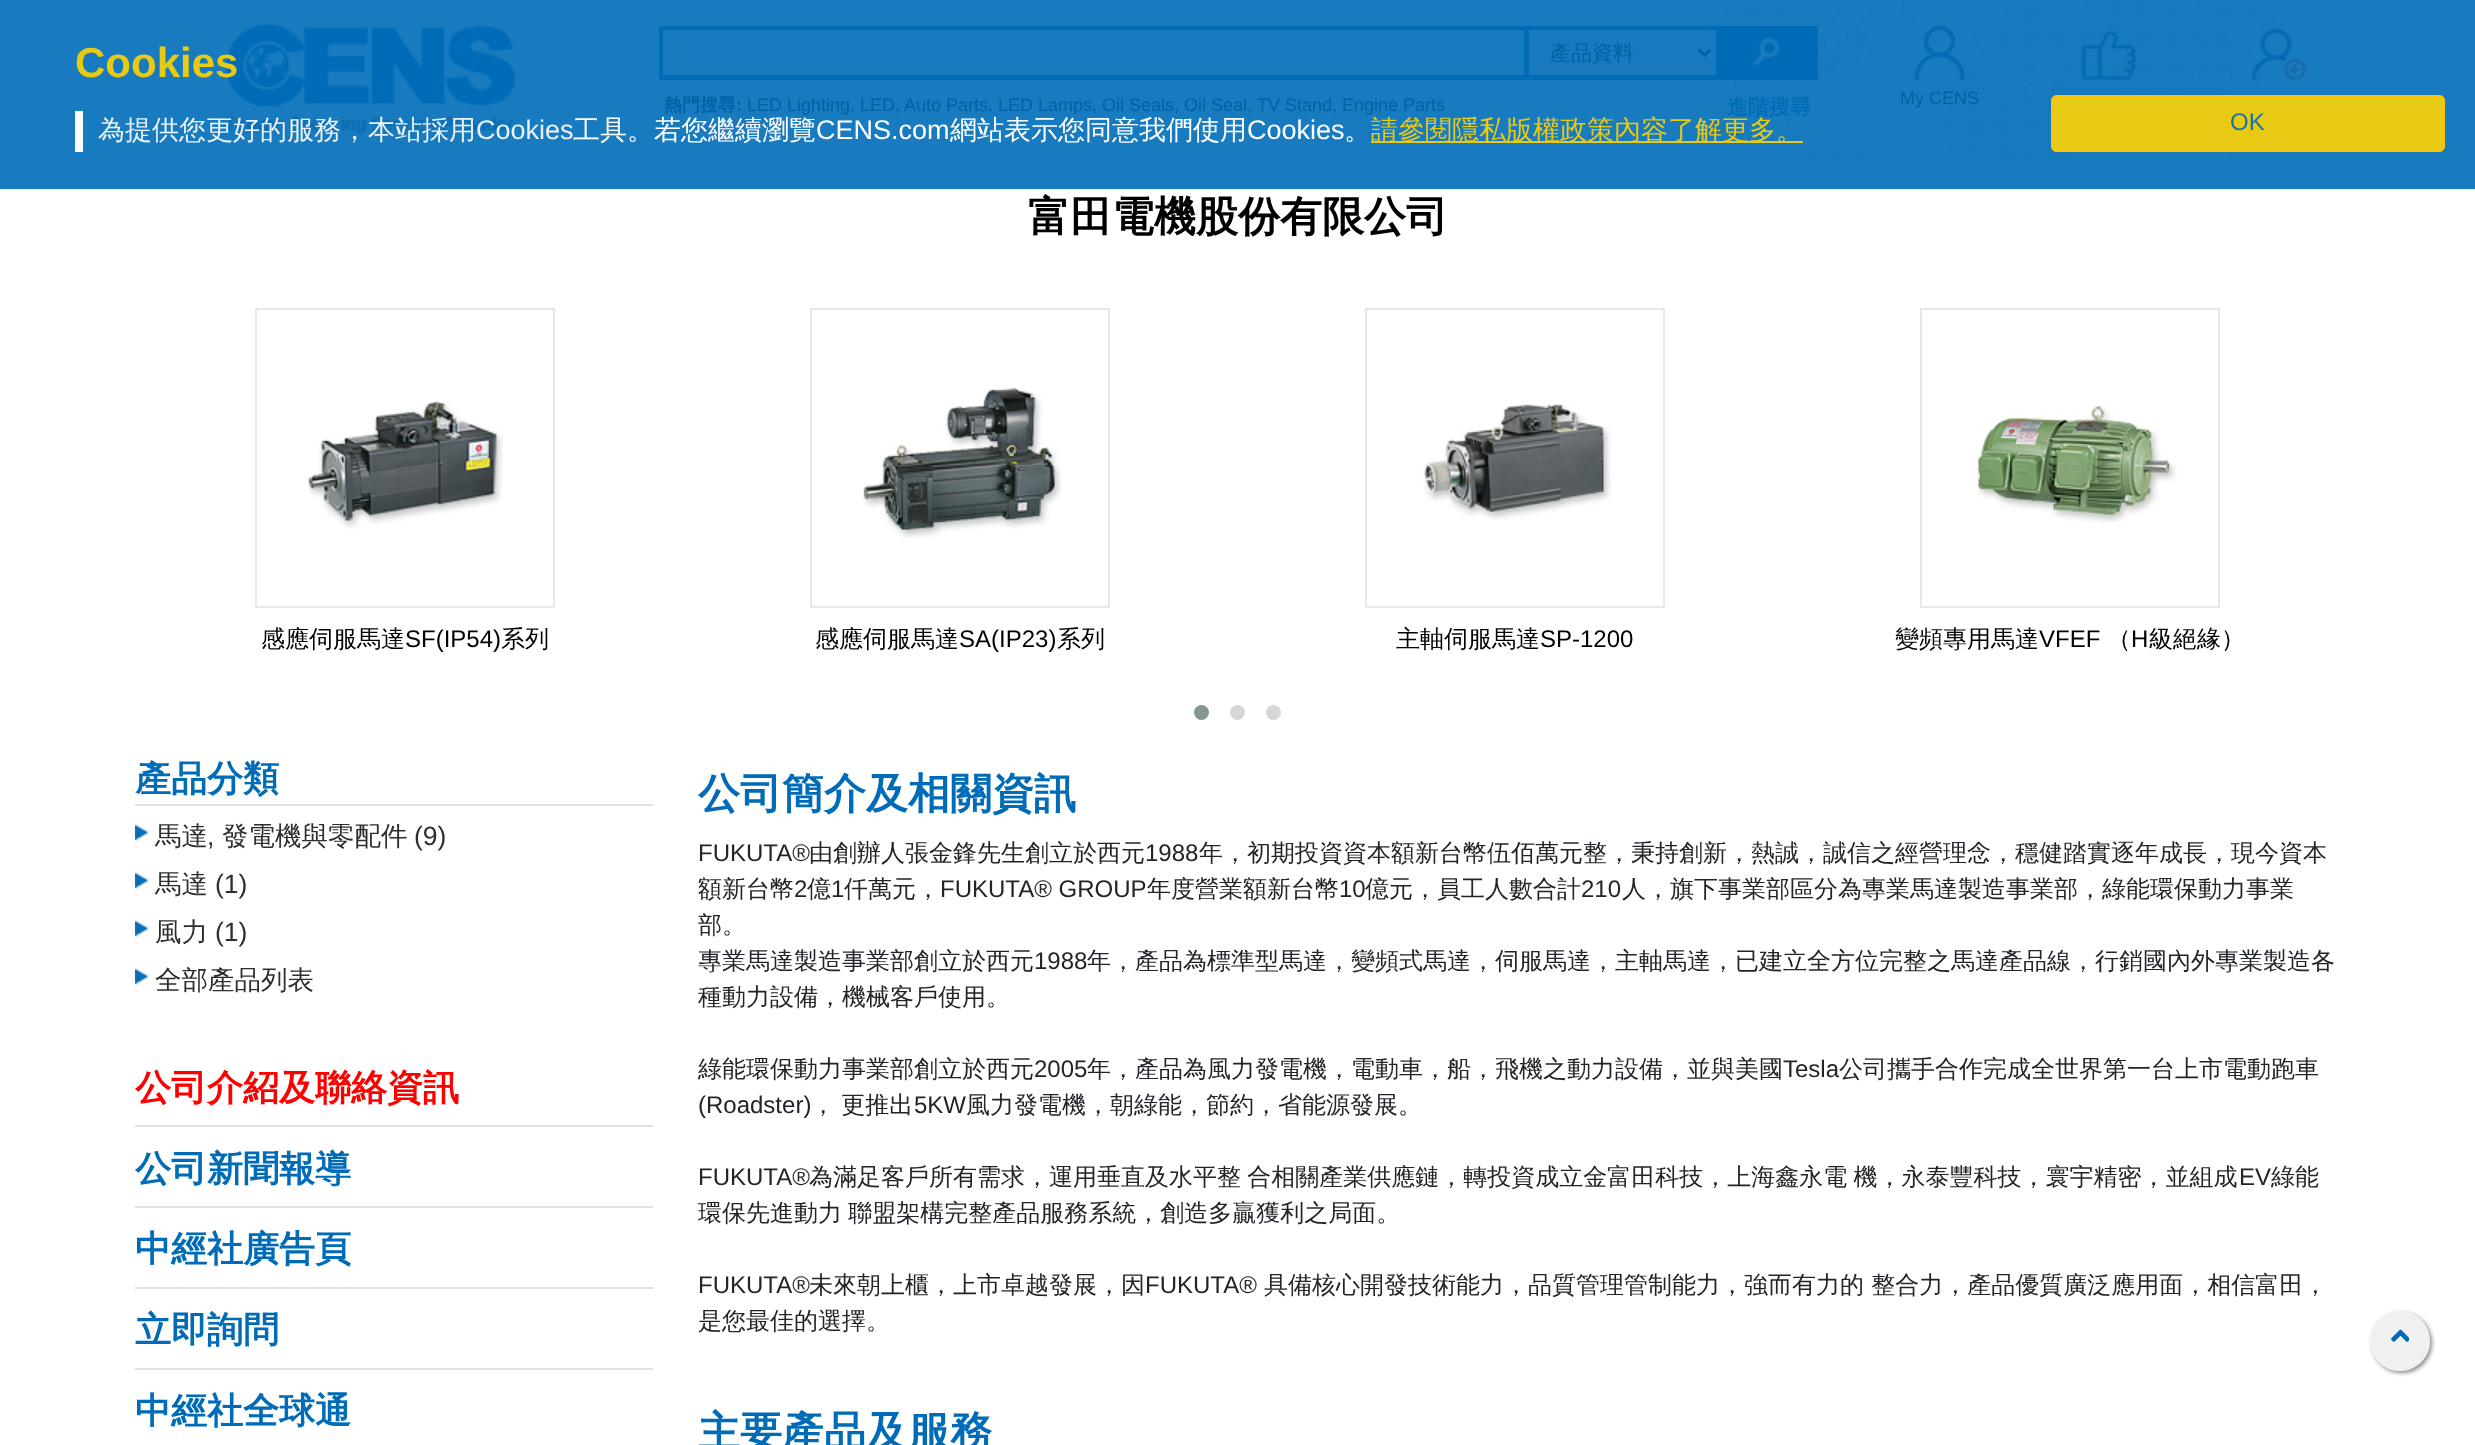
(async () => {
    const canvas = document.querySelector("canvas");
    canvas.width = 2475;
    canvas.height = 1445;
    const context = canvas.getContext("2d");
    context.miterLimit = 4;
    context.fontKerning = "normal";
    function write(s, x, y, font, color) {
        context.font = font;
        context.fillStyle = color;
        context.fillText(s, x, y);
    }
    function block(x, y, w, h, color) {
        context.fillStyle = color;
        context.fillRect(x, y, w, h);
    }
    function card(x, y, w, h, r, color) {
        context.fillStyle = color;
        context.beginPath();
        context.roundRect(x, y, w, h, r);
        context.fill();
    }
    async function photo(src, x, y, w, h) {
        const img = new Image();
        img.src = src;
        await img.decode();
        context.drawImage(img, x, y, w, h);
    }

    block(0, 0, 2475, 1445, "rgb(255, 255, 255)");
    block(0, 0, 2475, 189, "rgb(25, 123, 191)");
    await photo("media/1.png", 1701, 0, 588, 161);
    await photo("media/2.png", 224, 23, 293, 111);
    block(659, 26, 1159, 54, "rgb(0, 108, 184)");
    block(663, 30, 861, 45, "rgb(25, 123, 191)");
    block(1529, 30, 187, 45, "rgb(24, 121, 190)");
    context.beginPath();
    context.moveTo(1698.5, 49.5);
    context.lineTo(1704.5, 55.5);
    context.lineTo(1710.5, 49.5);
    context.strokeStyle = "rgb(0, 97, 166)";
    context.lineWidth = 3;
    context.stroke();
    write("產品資料", 1550, 60, "500 21px WenQuanYi Zen Hei", "rgb(0, 97, 166)");
    await photo("media/3.png", 1744, 30, 46, 45);
    context.save();
    context.beginPath();
    context.rect(665, 92, 859, 27);
    context.clip();
    write("熱門搜尋", 664, 111, "bold 18px WenQuanYi Zen Hei", "rgb(0, 97, 166)");
    context.restore();
    write(":", 736, 111, "bold 18px Liberation Sans", "rgb(0, 97, 166)");
    write("LED Lighting, LED,", 747, 111, "18px Liberation Sans", "rgb(0, 97, 166)");
    write("Auto Parts, LED Lamps, Oil Seals, Oil Seal,", 904, 111, "18px Liberation Sans", "rgb(0, 97, 166)");
    write("TV Stand, Engine Parts", 1257, 111, "18px Liberation Sans", "rgb(0, 97, 166)");
    write("進階搜尋", 1727, 114, "bold 21px WenQuanYi Zen Hei", "rgb(0, 108, 184)");
    await photo("media/4.png", 2082, 30, 54, 50);
    await photo("media/5.png", 2251, 28, 55, 52);
    await photo("media/6.png", 1914, 25, 51, 55);
    write("My CENS", 1900, 104, "18px Liberation Sans", "rgb(0, 97, 166)");
    write("Cookies", 75, 77, "bold 42px Liberation Sans", "rgb(232, 201, 19)");
    block(75, 111, 8, 41, "rgb(255, 255, 255)");
    write("為提供您更好的服務，本站採用", 98, 139, "500 27px WenQuanYi Zen Hei", "rgb(232, 242, 248)");
    write("Cookies", 476, 139, "27px Liberation Sans", "rgb(232, 242, 248)");
    write("工具。若您繼續瀏覽", 573, 139, "500 27px WenQuanYi Zen Hei", "rgb(255, 255, 255)");
    write("CENS.com", 816, 139, "27px Liberation Sans", "rgb(255, 255, 255)");
    write("網站表示您同意我們使用", 950, 139, "500 27px WenQuanYi Zen Hei", "rgb(255, 255, 255)");
    write("Cookies", 1247, 139, "27px Liberation Sans", "rgb(255, 255, 255)");
    write("。", 1344, 139, "500 27px WenQuanYi Zen Hei", "rgb(255, 255, 255)");
    block(1371, 141, 432, 2, "rgb(232, 201, 19)");
    write("請參閱隱私版權政策內容了解更多。", 1371, 139, "500 27px WenQuanYi Zen Hei", "rgb(232, 201, 19)");
    card(2051, 95, 394, 57, 6, "rgba(255, 210, 0, 0.9)");
    context.beginPath();
    context.roundRect(2052, 96, 392, 55, 5);
    context.strokeStyle = "rgba(255, 193, 7, 0.9)";
    context.lineWidth = 2;
    context.stroke();
    write("OK", 2230, 130, "24px Liberation Sans", "rgb(23, 117, 168)");
    write("富田電機股份有限公司", 1028, 231, "bold 42px WenQuanYi Zen Hei", "rgb(0, 0, 0)");
    context.strokeStyle = "rgb(232, 232, 232)";
    context.strokeRect(256, 309, 298, 298);
    await photo("media/7.png", 308, 401, 195, 128);
    write("感應伺服馬達", 261, 647, "500 24px WenQuanYi Zen Hei", "rgb(0, 0, 0)");
    write("SF(IP54)", 405, 647, "24px Liberation Sans", "rgb(0, 0, 0)");
    write("系列", 501, 647, "500 24px WenQuanYi Zen Hei", "rgb(0, 0, 0)");
    context.strokeRect(811, 309, 298, 298);
    await photo("media/8.png", 862, 388, 200, 150);
    write("感應伺服馬達", 815, 647, "500 24px WenQuanYi Zen Hei", "rgb(0, 0, 0)");
    write("SA(IP23)", 959, 647, "24px Liberation Sans", "rgb(0, 0, 0)");
    write("系列", 1057, 647, "500 24px WenQuanYi Zen Hei", "rgb(0, 0, 0)");
    context.strokeRect(1366, 309, 298, 298);
    await photo("media/9.png", 1423, 404, 189, 116);
    write("主軸伺服馬達", 1396, 647, "500 24px WenQuanYi Zen Hei", "rgb(0, 0, 0)");
    write("SP-1200", 1540, 647, "24px Liberation Sans", "rgb(0, 0, 0)");
    context.strokeRect(1921, 309, 298, 298);
    await photo("media/10.png", 1977, 406, 200, 117);
    write("變頻專用馬達", 1895, 647, "500 24px WenQuanYi Zen Hei", "rgb(0, 0, 0)");
    write("VFEF", 2039, 647, "24px Liberation Sans", "rgb(0, 0, 0)");
    write("（", 2107, 647, "500 24px WenQuanYi Zen Hei", "rgb(0, 0, 0)");
    write("H", 2131, 647, "24px Liberation Sans", "rgb(0, 0, 0)");
    write("級絕緣）", 2149, 647, "500 24px WenQuanYi Zen Hei", "rgb(0, 0, 0)");
    context.fillStyle = "rgb(134, 151, 145)";
    context.beginPath();
    context.arc(1201.5, 712.5, 7.5, 0, Math.PI * 2);
    context.fill();
    context.fillStyle = "rgb(214, 214, 214)";
    context.beginPath();
    context.arc(1237.5, 712.5, 7.5, 0, Math.PI * 2);
    context.fill();
    context.beginPath();
    context.arc(1273.5, 712.5, 7.5, 0, Math.PI * 2);
    context.fill();
    block(135, 804, 518, 2, "rgb(222, 226, 230)");
    write("產品分類", 135, 791, "bold 36px WenQuanYi Zen Hei", "rgb(0, 108, 184)");
    await photo("media/11.png", 135, 824, 14, 17);
    write("馬達", 155, 845, "500 26.5px WenQuanYi Zen Hei", "rgb(46, 46, 46)");
    write(",", 207, 845, "26.5px Liberation Sans", "rgb(46, 46, 46)");
    write("發電機與零配件", 222, 845, "500 26.5px WenQuanYi Zen Hei", "rgb(46, 46, 46)");
    write("(9)", 414, 845, "26.5px Liberation Sans", "rgb(46, 46, 46)");
    await photo("media/11.png", 135, 872, 14, 17);
    write("馬達", 155, 893, "500 26.5px WenQuanYi Zen Hei", "rgb(46, 46, 46)");
    write("(1)", 215, 893, "26.5px Liberation Sans", "rgb(46, 46, 46)");
    await photo("media/11.png", 135, 920, 14, 17);
    write("風力", 155, 941, "500 26.5px WenQuanYi Zen Hei", "rgb(46, 46, 46)");
    write("(1)", 215, 941, "26.5px Liberation Sans", "rgb(46, 46, 46)");
    await photo("media/11.png", 135, 968, 14, 17);
    write("全部產品列表", 155, 989, "500 26.5px WenQuanYi Zen Hei", "rgb(46, 46, 46)");
    block(135, 1125, 518, 2, "rgb(222, 226, 230)");
    write("公司介紹及聯絡資訊", 135, 1100, "bold 36px WenQuanYi Zen Hei", "rgb(255, 0, 0)");
    block(135, 1206, 518, 2, "rgb(222, 226, 230)");
    write("公司新聞報導", 135, 1181, "bold 36px WenQuanYi Zen Hei", "rgb(0, 108, 184)");
    block(135, 1287, 518, 2, "rgb(222, 226, 230)");
    write("中經社廣告頁", 135, 1261, "bold 36px WenQuanYi Zen Hei", "rgb(0, 108, 184)");
    block(135, 1368, 518, 2, "rgb(222, 226, 230)");
    write("立即詢問", 135, 1342, "bold 36px WenQuanYi Zen Hei", "rgb(0, 108, 184)");
    write("中經社全球通", 135, 1423, "bold 36px WenQuanYi Zen Hei", "rgb(0, 108, 184)");
    write("公司簡介及相關資訊", 698, 808, "bold 42px WenQuanYi Zen Hei", "rgb(0, 108, 184)");
    write("FUKUTA®", 698, 861, "24px Liberation Sans", "rgb(33, 37, 41)");
    write("由創辦人張金鋒先生創立於西元", 809, 861, "500 24px WenQuanYi Zen Hei", "rgb(33, 37, 41)");
    write("1988", 1145, 861, "24px Liberation Sans", "rgb(33, 37, 41)");
    write("年，初期投資資本額新台幣伍佰萬元整，秉持創新，熱誠，誠信之經營理念，穩健踏實逐年成長，現今資本", 1199, 861, "500 24px WenQuanYi Zen Hei", "rgb(33, 37, 41)");
    write("額新台幣", 698, 897, "500 24px WenQuanYi Zen Hei", "rgb(33, 37, 41)");
    write("2", 794, 897, "24px Liberation Sans", "rgb(33, 37, 41)");
    write("億", 807, 897, "500 24px WenQuanYi Zen Hei", "rgb(33, 37, 41)");
    write("1", 831, 897, "24px Liberation Sans", "rgb(33, 37, 41)");
    write("仟萬元，", 844, 897, "500 24px WenQuanYi Zen Hei", "rgb(33, 37, 41)");
    write("FUKUTA® GROUP", 940, 897, "24px Liberation Sans", "rgb(33, 37, 41)");
    write("年度營業額新台幣", 1147, 897, "500 24px WenQuanYi Zen Hei", "rgb(33, 37, 41)");
    write("10", 1339, 897, "24px Liberation Sans", "rgb(33, 37, 41)");
    write("億元，員工人數合計", 1365, 897, "500 24px WenQuanYi Zen Hei", "rgb(33, 37, 41)");
    write("210", 1581, 897, "24px Liberation Sans", "rgb(33, 37, 41)");
    write("人，旗下事業部區分為專業馬達製造事業部，綠能環保動力事業", 1622, 897, "500 24px WenQuanYi Zen Hei", "rgb(33, 37, 41)");
    write("部。", 698, 933, "500 24px WenQuanYi Zen Hei", "rgb(33, 37, 41)");
    write("專業馬達製造事業部創立於西元", 698, 969, "500 24px WenQuanYi Zen Hei", "rgb(33, 37, 41)");
    write("1988", 1034, 969, "24px Liberation Sans", "rgb(33, 37, 41)");
    write("年，產品為標準型馬達，變頻式馬達，伺服馬達，主軸馬達，已建立全方位完整之馬達產品線，行銷國內外專業製造各", 1087, 969, "500 24px WenQuanYi Zen Hei", "rgb(33, 37, 41)");
    write("種動力設備，機械客戶使用。", 698, 1005, "500 24px WenQuanYi Zen Hei", "rgb(33, 37, 41)");
    write("綠能環保動力事業部創立於西元", 698, 1077, "500 24px WenQuanYi Zen Hei", "rgb(33, 37, 41)");
    write("2005", 1034, 1077, "24px Liberation Sans", "rgb(33, 37, 41)");
    write("年，產品為風力發電機，電動車，船，飛機之動力設備，並與美國", 1087, 1077, "500 24px WenQuanYi Zen Hei", "rgb(33, 37, 41)");
    write("Tesla", 1783, 1077, "24px Liberation Sans", "rgb(33, 37, 41)");
    write("公司攜手合作完成全世界第一台上市電動跑車", 1839, 1077, "500 24px WenQuanYi Zen Hei", "rgb(33, 37, 41)");
    write("(Roadster)", 698, 1113, "24px Liberation Sans", "rgb(33, 37, 41)");
    context.wordSpacing = "-1px";
    write("， 更推出", 811, 1113, "500 24px WenQuanYi Zen Hei", "rgb(33, 37, 41)");
    context.wordSpacing = "0px";
    write("5KW", 914, 1113, "24px Liberation Sans", "rgb(33, 37, 41)");
    write("風力發電機，朝綠能，節約，省能源發展。", 966, 1113, "500 24px WenQuanYi Zen Hei", "rgb(33, 37, 41)");
    write("FUKUTA®", 698, 1185, "24px Liberation Sans", "rgb(33, 37, 41)");
    context.wordSpacing = "-1px";
    write("為滿足客戶所有需求，運用垂直及水平整 合相關產業供應鏈，轉投資成立金富田科技，上海鑫永電 機，永泰豐科技，寰宇精密，並組成", 809, 1185, "500 24px WenQuanYi Zen Hei", "rgb(33, 37, 41)");
    context.wordSpacing = "0px";
    write("EV", 2239, 1185, "24px Liberation Sans", "rgb(33, 37, 41)");
    write("綠能", 2271, 1185, "500 24px WenQuanYi Zen Hei", "rgb(33, 37, 41)");
    context.wordSpacing = "-1px";
    write("環保先進動力 聯盟架構完整產品服務系統，創造多贏獲利之局面。", 698, 1221, "500 24px WenQuanYi Zen Hei", "rgb(33, 37, 41)");
    context.wordSpacing = "0px";
    write("FUKUTA®", 698, 1293, "24px Liberation Sans", "rgb(33, 37, 41)");
    write("未來朝上櫃，上市卓越發展，因", 809, 1293, "500 24px WenQuanYi Zen Hei", "rgb(33, 37, 41)");
    write("FUKUTA®", 1145, 1293, "24px Liberation Sans", "rgb(33, 37, 41)");
    write("具備核心開發技術能力，品質管理管制能力，強而有力的 整合力，產品優質廣泛應用面，相信富田，", 1264, 1293, "500 24px WenQuanYi Zen Hei", "rgb(33, 37, 41)");
    write("是您最佳的選擇。", 698, 1329, "500 24px WenQuanYi Zen Hei", "rgb(33, 37, 41)");
    write("主要產品及服務", 698, 1446, "bold 42px WenQuanYi Zen Hei", "rgb(0, 108, 184)");
    context.save();
    context.beginPath();
    context.moveTo(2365, 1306);
    context.lineTo(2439, 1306);
    context.lineTo(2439, 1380);
    context.lineTo(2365, 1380);
    context.closePath();
    context.moveTo(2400, 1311);
    context.bezierCurveTo(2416.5, 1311, 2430, 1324.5, 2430, 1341);
    context.bezierCurveTo(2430, 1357.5, 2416.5, 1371, 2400, 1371);
    context.bezierCurveTo(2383.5, 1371, 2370, 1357.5, 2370, 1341);
    context.bezierCurveTo(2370, 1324.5, 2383.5, 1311, 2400, 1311);
    context.closePath();
    context.clip("evenodd");
    context.fillStyle = "rgb(136, 136, 136)";
    context.filter = "blur(2px)";
    context.beginPath();
    context.roundRect(2372, 1313, 60, 60, 30);
    context.fill();
    context.filter = "none";
    context.restore();
    context.fillStyle = "rgba(226, 226, 226, 0.5)";
    context.beginPath();
    context.arc(2400, 1341, 30, 0, Math.PI * 2);
    context.fill();
    await photo("media/12.png", 2391, 1329, 18, 13);
})();
